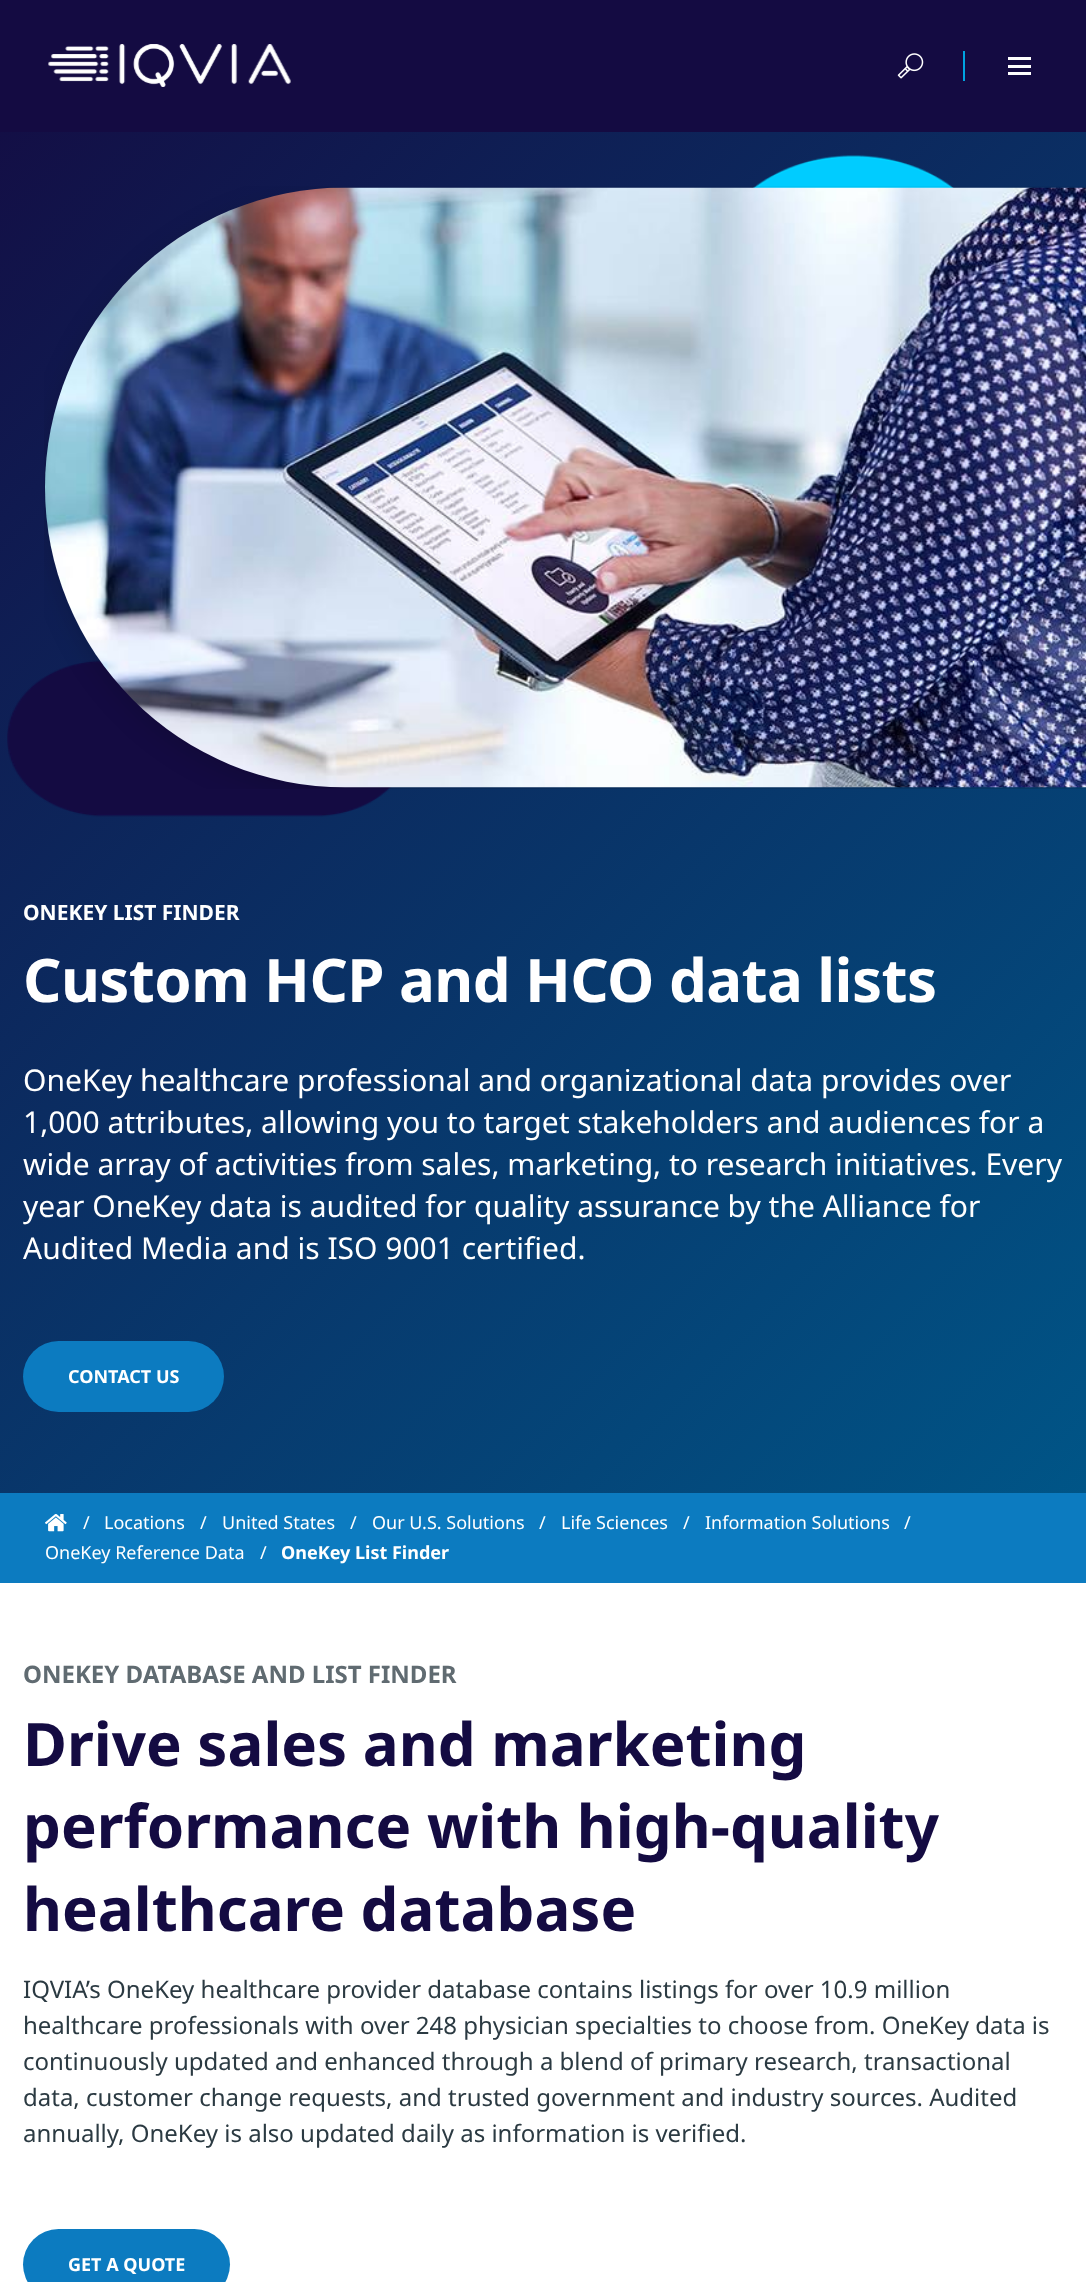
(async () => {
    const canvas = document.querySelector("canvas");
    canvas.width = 1086;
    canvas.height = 2282;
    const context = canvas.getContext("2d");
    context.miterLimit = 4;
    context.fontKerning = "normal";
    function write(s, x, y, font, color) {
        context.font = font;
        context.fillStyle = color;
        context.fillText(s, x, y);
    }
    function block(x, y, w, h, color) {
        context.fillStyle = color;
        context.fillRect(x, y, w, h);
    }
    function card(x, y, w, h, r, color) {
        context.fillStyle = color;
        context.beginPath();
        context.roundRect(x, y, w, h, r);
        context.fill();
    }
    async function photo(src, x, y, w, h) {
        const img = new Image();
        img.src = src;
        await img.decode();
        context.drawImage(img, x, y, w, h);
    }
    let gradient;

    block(0, 0, 1086, 2282, "rgb(255, 255, 255)");
    block(0, 0, 1086, 132, "rgb(20, 11, 66)");
    await photo("media/1.png", 48, 44, 243, 43);
    block(963, 51, 2, 30, "rgb(0, 163, 224)");
    await photo("media/2.png", 897, 53, 27, 26);
    block(1008, 57, 23, 3, "rgb(255, 255, 255)");
    block(1008, 65, 23, 3, "rgb(255, 255, 255)");
    block(1008, 72, 23, 3, "rgb(255, 255, 255)");
    gradient = context.createLinearGradient(-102, 102, 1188, 1391);
    gradient.addColorStop(0, "rgb(20, 11, 66)");
    gradient.addColorStop(1, "rgb(0, 85, 135)");
    context.fillStyle = gradient;
    context.fillRect(0, 132, 1086, 1361);
    await photo("media/3.png", 7, 155, 947, 662);
    await photo("media/4.png", 44, 186, 1042, 603);
    write("ONEKEY LIST FINDER", 23, 920, "bold 21px Noto Sans", "rgb(255, 255, 255)");
    context.letterSpacing = "-0.6px";
    write("Custom HCP and HCO data lists", 23, 1002, "bold 60px Noto Sans", "rgb(255, 255, 255)");
    context.letterSpacing = "0px";
    write("OneKey healthcare professional and organizational data provides over", 23, 1091, "30px Noto Sans", "rgb(255, 255, 255)");
    write("1,000 attributes, allowing you to target stakeholders and audiences for a", 23, 1133, "30px Noto Sans", "rgb(255, 255, 255)");
    write("wide array of activities from sales, marketing, to research initiatives. Every", 23, 1175, "30px Noto Sans", "rgb(255, 255, 255)");
    write("year OneKey data is audited for quality assurance by the Alliance for", 23, 1217, "30px Noto Sans", "rgb(255, 255, 255)");
    write("Audited Media and is ISO 9001 certified.", 23, 1259, "30px Noto Sans", "rgb(255, 255, 255)");
    card(23, 1341, 201, 71, 35.5, "rgb(12, 123, 192)");
    write("CONTACT US", 68, 1383, "bold 18px Noto Sans", "rgb(255, 255, 255)");
    block(0, 1493, 1086, 90, "rgb(12, 123, 192)");
    await photo("media/5.png", 45, 1514, 22, 18);
    write("/", 83, 1529, "18px Noto Sans", "rgb(255, 255, 255)");
    write("Locations", 104, 1529, "18px Noto Sans", "rgb(255, 255, 255)");
    write("/", 200, 1529, "18px Noto Sans", "rgb(255, 255, 255)");
    write("United States", 222, 1529, "18px Noto Sans", "rgb(255, 255, 255)");
    write("/", 350, 1529, "18px Noto Sans", "rgb(255, 255, 255)");
    write("Our U.S. Solutions", 372, 1529, "18px Noto Sans", "rgb(255, 255, 255)");
    write("/", 539, 1529, "18px Noto Sans", "rgb(255, 255, 255)");
    write("Life Sciences", 561, 1529, "18px Noto Sans", "rgb(255, 255, 255)");
    write("/", 683, 1529, "18px Noto Sans", "rgb(255, 255, 255)");
    write("Information Solutions", 705, 1529, "18px Noto Sans", "rgb(255, 255, 255)");
    write("/", 904, 1529, "18px Noto Sans", "rgb(255, 255, 255)");
    write("OneKey Reference Data", 45, 1559, "18px Noto Sans", "rgb(255, 255, 255)");
    write("/", 260, 1559, "18px Noto Sans", "rgb(255, 255, 255)");
    write("OneKey List Finder", 281, 1559, "bold 18px Noto Sans", "rgb(255, 255, 255)");
    write("ONEKEY DATABASE AND LIST FINDER", 23, 1683, "bold 24px Noto Sans", "rgb(96, 107, 113)");
    write("Drive sales and marketing", 23, 1766, "bold 60px Noto Sans", "rgb(20, 11, 66)");
    write("performance with high-quality", 23, 1848, "bold 60px Noto Sans", "rgb(20, 11, 66)");
    write("healthcare database", 23, 1931, "bold 60px Noto Sans", "rgb(20, 11, 66)");
    write("IQVIA’s OneKey healthcare provider database contains listings for over 10.9 million", 23, 1998, "24px Noto Sans", "rgb(43, 58, 66)");
    write("healthcare professionals with over 248 physician specialties to choose from. OneKey data is", 23, 2034, "24px Noto Sans", "rgb(43, 58, 66)");
    write("continuously updated and enhanced through a blend of primary research, transactional", 23, 2070, "24px Noto Sans", "rgb(43, 58, 66)");
    write("data, customer change requests, and trusted government and industry sources. Audited", 23, 2106, "24px Noto Sans", "rgb(43, 58, 66)");
    write("annually, OneKey is also updated daily as information is verified.", 23, 2142, "24px Noto Sans", "rgb(43, 58, 66)");
    card(23, 2229, 207, 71, 35.5, "rgb(12, 123, 192)");
    write("GET A QUOTE", 68, 2271, "bold 18px Noto Sans", "rgb(255, 255, 255)");
})();
